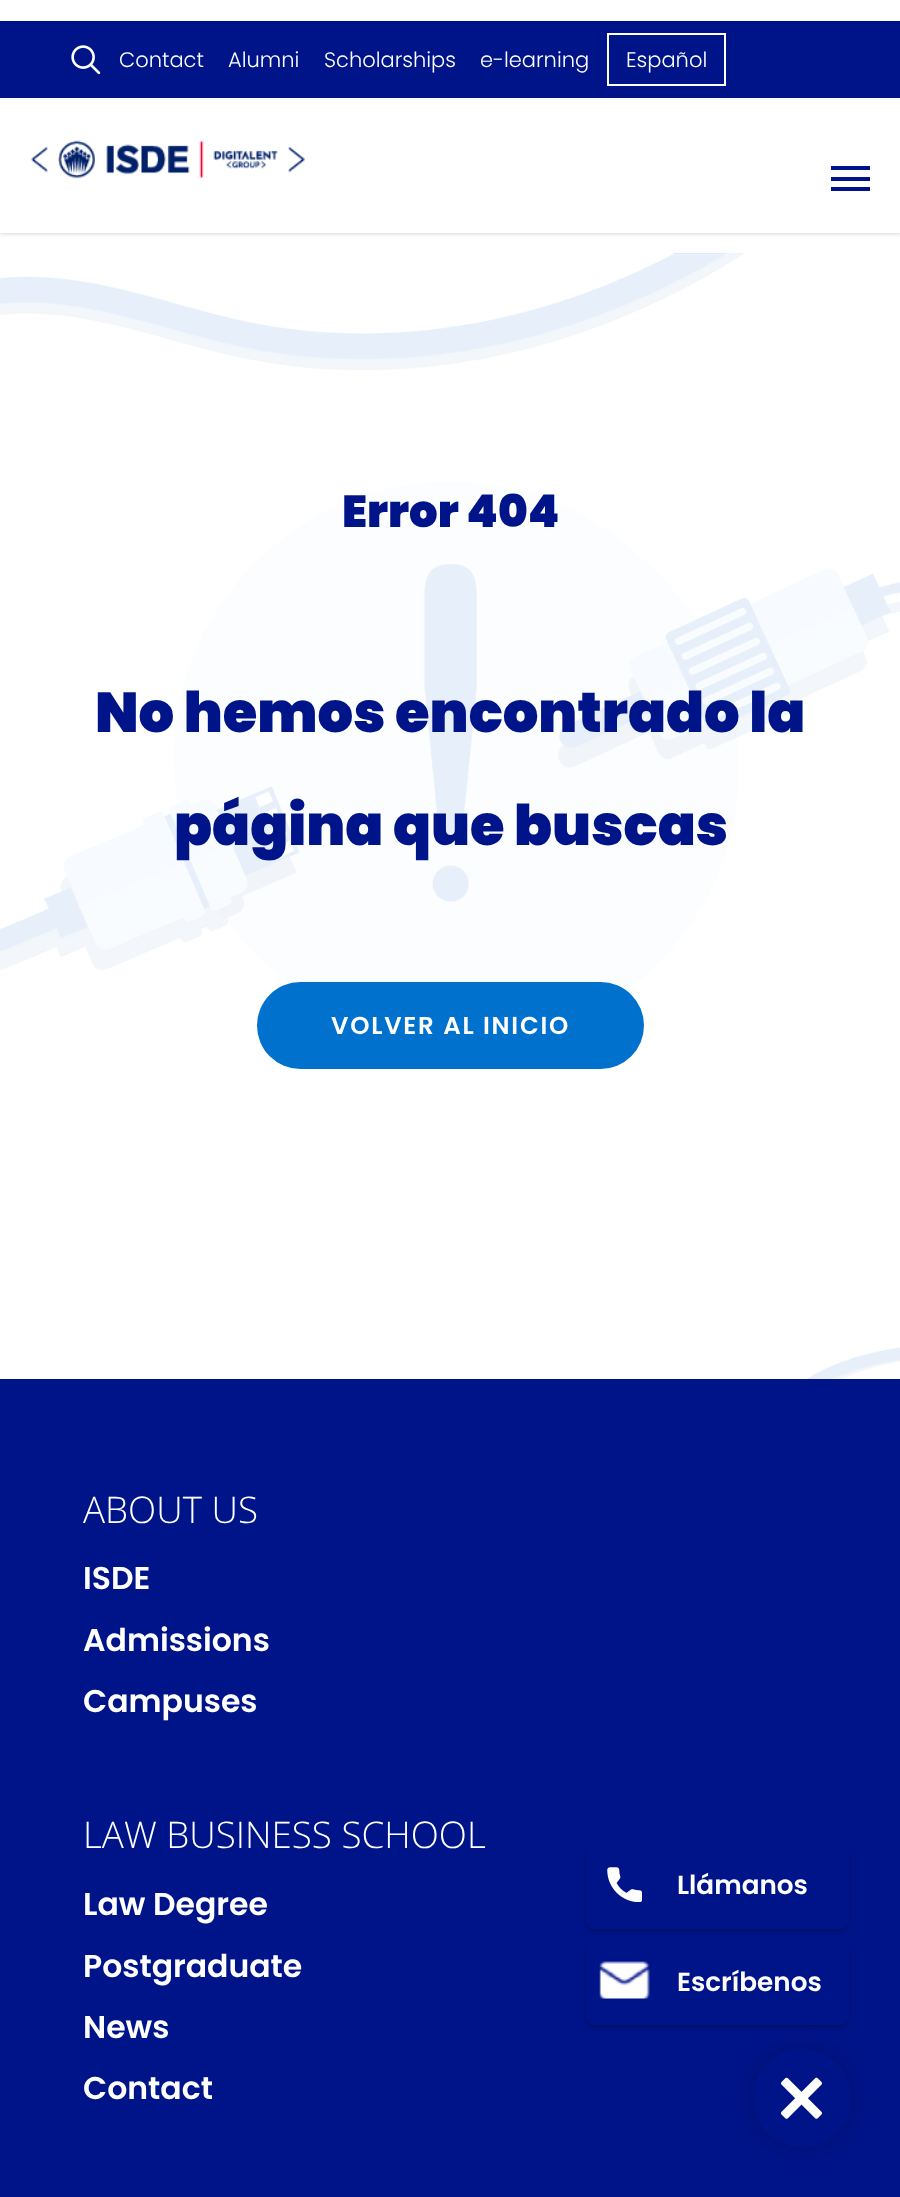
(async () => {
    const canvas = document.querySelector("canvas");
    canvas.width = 900;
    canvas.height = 2197;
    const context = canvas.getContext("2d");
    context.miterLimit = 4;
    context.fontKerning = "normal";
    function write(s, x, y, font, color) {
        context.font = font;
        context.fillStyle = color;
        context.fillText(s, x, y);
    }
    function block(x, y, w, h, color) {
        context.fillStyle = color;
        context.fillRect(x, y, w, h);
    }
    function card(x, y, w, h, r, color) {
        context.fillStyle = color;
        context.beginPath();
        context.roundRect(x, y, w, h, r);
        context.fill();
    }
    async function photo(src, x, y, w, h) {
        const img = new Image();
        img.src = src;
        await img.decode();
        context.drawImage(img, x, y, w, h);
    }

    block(0, 0, 900, 2197, "rgb(255, 255, 255)");
    context.save();
    context.beginPath();
    context.moveTo(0, 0);
    context.lineTo(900, 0);
    context.lineTo(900, 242);
    context.lineTo(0, 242);
    context.closePath();
    context.moveTo(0, 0);
    context.lineTo(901, 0);
    context.lineTo(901, 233);
    context.lineTo(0, 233);
    context.closePath();
    context.clip("evenodd");
    context.fillStyle = "rgba(0, 0, 0, 0.22)";
    context.filter = "blur(2.5px)";
    context.beginPath();
    context.rect(0, 0, 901, 233);
    context.fill();
    context.filter = "none";
    context.restore();
    block(0, 232, 900, 1, "rgba(255, 255, 255, 0.9)");
    block(0, 21, 900, 77, "rgb(0, 20, 137)");
    await photo("media/1.png", 71, 45, 30, 30);
    write("Contact", 119, 67, "300 21px Poppins", "rgb(255, 255, 255)");
    write("Alumni", 228, 67, "300 21px Poppins", "rgb(255, 255, 255)");
    write("Scholarships", 324, 67, "300 21px Poppins", "rgb(255, 255, 255)");
    write("e-learning", 480, 67, "300 21px Poppins", "rgb(255, 255, 255)");
    context.strokeStyle = "rgb(255, 255, 255)";
    context.lineWidth = 2;
    context.strokeRect(608, 34, 117, 51);
    write("Español", 626, 67, "300 21px Poppins", "rgb(255, 255, 255)");
    await photo("media/2.png", 31, 140, 274, 39);
    block(831, 166, 39, 4, "rgb(0, 20, 137)");
    block(831, 187, 39, 4, "rgb(0, 20, 137)");
    block(831, 177, 39, 4, "rgb(0, 20, 137)");
    await photo("media/3.png", 0, 253, 900, 1126);
    write("Error 404", 342, 527, "900 45px Poppins", "rgb(0, 20, 137)");
    write("No hemos encontrado la", 95, 732, "900 56px Poppins", "rgb(0, 20, 137)");
    write("página que buscas", 174, 845, "900 56px Poppins", "rgb(0, 20, 137)");
    card(257, 982, 387, 87, 43.5, "rgb(0, 114, 206)");
    context.letterSpacing = "1.75px";
    write("VOLVER AL INICIO", 331, 1034, "600 24.5px Poppins", "rgb(255, 255, 255)");
    block(0, 1379, 900, 818, "rgb(0, 20, 137)");
    context.letterSpacing = "0px";
    write("ABOUT US", 83, 1523, "300 36.75px Open Sans", "rgb(255, 255, 255)");
    write("ISDE", 83, 1589, "600 31.5px Poppins", "rgb(255, 255, 255)");
    write("Admissions", 83, 1651, "600 31.5px Poppins", "rgb(255, 255, 255)");
    write("Campuses", 83, 1712, "600 31.5px Poppins", "rgb(255, 255, 255)");
    write("LAW BUSINESS SCHOOL", 83, 1848, "300 36.75px Open Sans", "rgb(255, 255, 255)");
    write("Law Degree", 83, 1915, "600 31.5px Poppins", "rgb(255, 255, 255)");
    write("Postgraduate", 83, 1977, "600 31.5px Poppins", "rgb(255, 255, 255)");
    write("News", 83, 2038, "600 31.5px Poppins", "rgb(255, 255, 255)");
    write("Contact", 83, 2099, "600 31.5px Poppins", "rgb(255, 255, 255)");
    context.fillStyle = "rgba(0, 0, 0, 0.2)";
    context.filter = "blur(2px)";
    context.beginPath();
    context.roundRect(586, 1845, 263, 87, 9);
    context.fill();
    context.filter = "none";
    card(586, 1841, 263, 88, 9, "rgb(0, 20, 137)");
    await photo("media/4.png", 607, 1867, 35, 35);
    write("Llámanos", 677, 1894, "600 26.25px Poppins", "rgb(255, 255, 255)");
    context.fillStyle = "rgba(0, 0, 0, 0.2)";
    context.filter = "blur(2px)";
    context.beginPath();
    context.roundRect(586, 1941, 263, 87, 9);
    context.fill();
    context.filter = "none";
    card(586, 1937, 263, 88, 9, "rgb(0, 20, 137)");
    await photo("media/5.png", 599, 1961, 51, 38);
    write("Escríbenos", 677, 1991, "600 26.25px Poppins", "rgb(255, 255, 255)");
    context.fillStyle = "rgba(0, 0, 0, 0.2)";
    context.filter = "blur(10.5px)";
    context.beginPath();
    context.roundRect(753, 2049, 98, 98, 49);
    context.fill();
    context.filter = "none";
    context.fillStyle = "rgb(0, 20, 137)";
    context.beginPath();
    context.arc(802, 2098, 49, 0, Math.PI * 2);
    context.fill();
    await photo("media/6.png", 781, 2077, 41, 42);
})();
